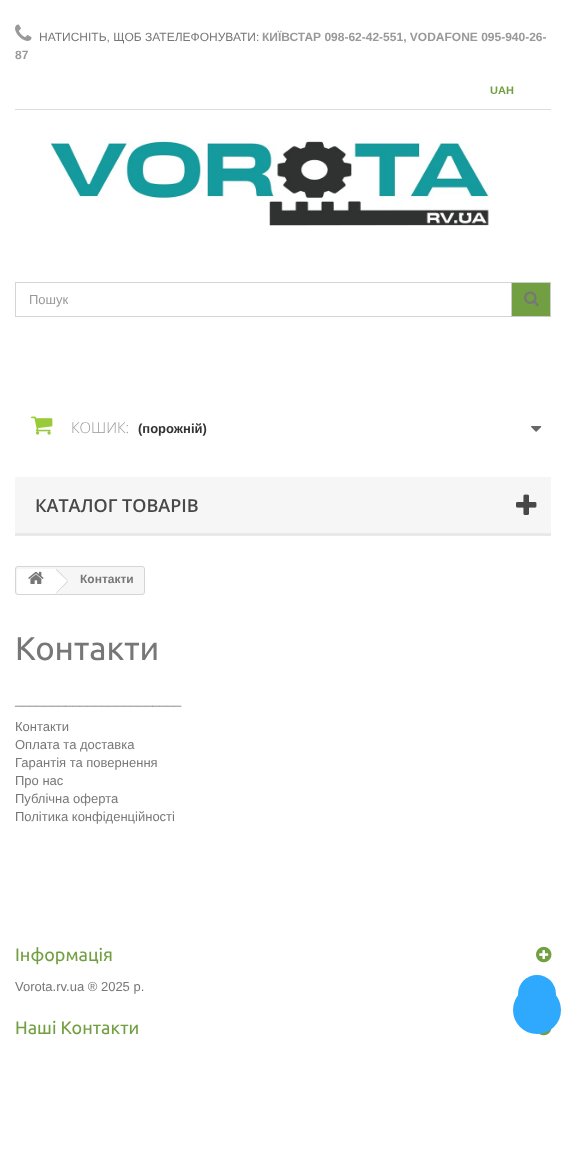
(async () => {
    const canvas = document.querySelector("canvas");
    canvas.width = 566;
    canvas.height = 1154;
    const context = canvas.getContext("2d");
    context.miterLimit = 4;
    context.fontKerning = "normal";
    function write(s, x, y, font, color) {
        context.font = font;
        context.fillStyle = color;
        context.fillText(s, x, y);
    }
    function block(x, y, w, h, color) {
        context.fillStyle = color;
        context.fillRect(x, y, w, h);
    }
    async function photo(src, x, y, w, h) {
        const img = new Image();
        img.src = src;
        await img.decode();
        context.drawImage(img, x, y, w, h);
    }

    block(0, 0, 566, 1154, "rgb(255, 255, 255)");
    block(15, 109, 536, 1, "rgb(221, 221, 221)");
    await photo("media/1.png", 15, 24, 17, 17);
    write("НАТИСНІТЬ, ЩОБ ЗАТЕЛЕФОНУВАТИ:", 39, 41, "12px Liberation Sans", "rgb(119, 119, 119)");
    write("КИЇВСТАР 098-62-42-551, VODAFONE 095-940-26-", 262, 41, "bold 12px Liberation Sans", "rgb(153, 153, 153)");
    write("87", 15, 59, "bold 12px Liberation Sans", "rgb(153, 153, 153)");
    write("UAH", 490, 94, "bold 11px Liberation Sans", "rgb(113, 159, 65)");
    await photo("media/2.png", 49, 139, 440, 87);
    context.strokeStyle = "rgb(214, 212, 212)";
    context.strokeRect(15.5, 282.5, 535, 34);
    write("Пошук", 29, 304, "13px Liberation Sans", "rgb(153, 153, 153)");
    context.fillStyle = "rgb(113, 159, 65)";
    context.beginPath();
    context.rect(511.5, 282.5, 39, 34);
    context.fill();
    context.strokeStyle = "rgb(204, 204, 204)";
    context.stroke();
    await photo("media/3.png", 524, 291, 15, 16);
    await photo("media/4.png", 31, 416, 22, 19);
    write("КОШИК:", 71, 433, "300 15px Open Sans", "rgb(153, 153, 153)");
    write("(порожній)", 138, 433, "bold 13px Liberation Sans", "rgb(51, 51, 51)");
    await photo("media/5.png", 531, 426, 11, 6);
    block(15, 477, 536, 56, "rgb(246, 246, 246)");
    block(15, 533, 536, 3, "rgb(233, 233, 233)");
    write("КАТАЛОГ ТОВАРІВ", 35, 512, "600 18px Open Sans", "rgb(72, 72, 72)");
    await photo("media/6.png", 516, 494, 21, 21);
    context.fillStyle = "rgb(246, 246, 246)";
    context.beginPath();
    context.roundRect(15.5, 566.5, 129, 28, 2.5);
    context.fill();
    context.strokeStyle = "rgb(214, 212, 212)";
    context.stroke();
    context.fillStyle = "rgb(255, 255, 255)";
    context.beginPath();
    context.roundRect(17, 569, 38, 25, [3, 0, 0, 3]);
    context.fill();
    await photo("media/7.png", 28, 571, 16, 13);
    context.beginPath();
    context.moveTo(57.5, 570);
    context.lineTo(67.5, 580);
    context.bezierCurveTo(68, 580.5, 68, 582, 67.5, 582.5);
    context.lineTo(57.5, 592.5);
    context.bezierCurveTo(56.5, 593.5, 55.5, 593.5, 54.5, 592.5);
    context.lineTo(44.5, 582.5);
    context.bezierCurveTo(44, 582, 44, 580.5, 44.5, 580);
    context.lineTo(54.5, 570);
    context.bezierCurveTo(55.5, 569, 56.5, 569, 57.5, 570);
    context.closePath();
    context.fill();
    context.fillStyle = "rgb(214, 212, 212)";
    context.beginPath();
    context.moveTo(56.5, 569);
    context.lineTo(68, 580.5);
    context.lineTo(67.5, 581);
    context.lineTo(56, 570);
    context.closePath();
    context.moveTo(67.5, 581);
    context.lineTo(68, 582);
    context.lineTo(56.5, 593);
    context.lineTo(56, 592.5);
    context.closePath();
    context.fill();
    write("Контакти", 80, 583, "bold 12px Liberation Sans", "rgb(119, 119, 119)");
    write("Контакти", 15, 660, "33px Ubuntu", "rgb(119, 119, 119)");
    write("_______________________", 15, 704, "13px Liberation Sans", "rgb(119, 119, 119)");
    write("Контакти", 15, 731, "13px Liberation Sans", "rgb(119, 119, 119)");
    write("Оплата та доставка", 15, 749, "13px Liberation Sans", "rgb(119, 119, 119)");
    write("Гарантія та повернення", 15, 767, "13px Liberation Sans", "rgb(119, 119, 119)");
    write("Про нас", 15, 785, "13px Liberation Sans", "rgb(119, 119, 119)");
    write("Публічна оферта", 15, 803, "13px Liberation Sans", "rgb(119, 119, 119)");
    write("Політика конфіденційності", 15, 821, "13px Liberation Sans", "rgb(119, 119, 119)");
    write("Інформація", 15, 961, "18px Ubuntu", "rgb(113, 159, 65)");
    await photo("media/8.png", 536, 946, 16, 17);
    write("Vorota.rv.ua ® 2025 р.", 15, 991, "13px Liberation Sans", "rgb(119, 119, 119)");
    context.fillStyle = "rgb(46, 169, 253)";
    context.beginPath();
    context.arc(537, 994, 19, 0, Math.PI * 2);
    context.fill();
    await photo("media/9.png", 538, 1028, 14, 8);
    context.beginPath();
    context.arc(537, 1010, 24, 0, Math.PI * 2);
    context.fill();
    write("Наші Контакти", 15, 1034, "18px Ubuntu", "rgb(113, 159, 65)");
})();
